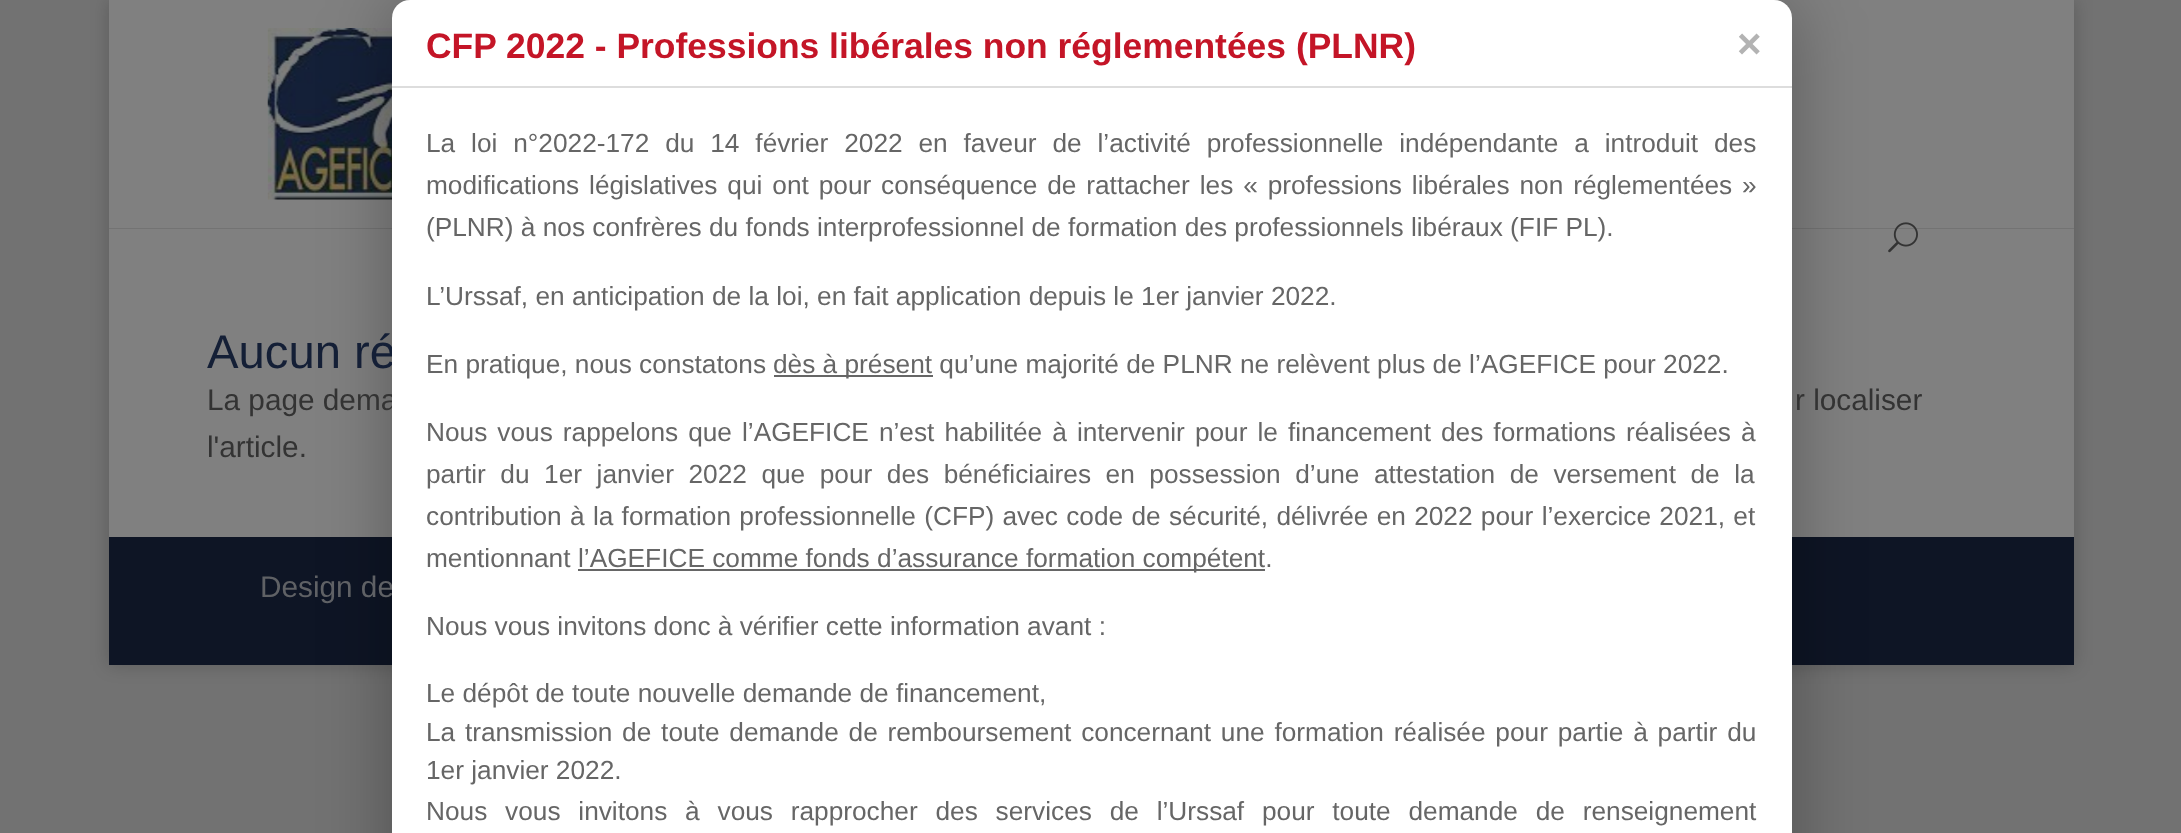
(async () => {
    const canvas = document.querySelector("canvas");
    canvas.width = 2181;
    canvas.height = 833;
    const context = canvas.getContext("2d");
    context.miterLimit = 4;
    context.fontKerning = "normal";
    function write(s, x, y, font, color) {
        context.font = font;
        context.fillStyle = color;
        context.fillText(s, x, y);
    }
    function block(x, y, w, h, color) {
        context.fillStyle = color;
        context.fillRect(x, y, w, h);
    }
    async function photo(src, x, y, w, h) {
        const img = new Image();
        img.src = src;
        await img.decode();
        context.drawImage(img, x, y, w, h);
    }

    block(0, 0, 2181, 833, "rgb(114, 114, 114)");
    context.fillStyle = "rgba(0, 0, 0, 0.2)";
    context.filter = "blur(9px)";
    context.beginPath();
    context.rect(109, 0, 1965, 665);
    context.fill();
    context.filter = "none";
    context.fillStyle = "rgb(115, 115, 115)";
    context.beginPath();
    context.moveTo(109, 228);
    context.lineTo(109, 229);
    context.lineTo(2074, 229);
    context.lineTo(2074, 2);
    context.lineTo(2074, 228);
    context.closePath();
    context.fill();
    block(109, 0, 1965, 228, "rgb(128, 128, 128)");
    await photo("media/1.png", 267, 28, 125, 172);
    block(109, 229, 1965, 308, "rgb(128, 128, 128)");
    await photo("media/2.png", 1888, 222, 30, 31);
    block(109, 537, 1965, 128, "rgb(14, 21, 37)");
    context.fillStyle = "rgba(0, 0, 0, 0.3)";
    context.filter = "blur(35px)";
    context.beginPath();
    context.roundRect(392, 4, 1400, 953, 19);
    context.fill();
    context.filter = "none";
    write("Aucun ré", 207, 368, "47.25px Liberation Sans", "rgb(20, 31, 54)");
    write("La page dema", 207, 410, "29.75px Liberation Sans", "rgb(51, 51, 51)");
    write("Design de", 260, 597, "29.75px Liberation Sans", "rgb(95, 97, 101)");
    context.fillStyle = "rgb(255, 255, 255)";
    context.beginPath();
    context.roundRect(392, 0, 1400, 833, [18, 18, 0, 0]);
    context.fill();
    block(392, 86, 1400, 2, "rgb(221, 221, 221)");
    write("CFP 2022 - Professions libérales non réglementées (PLNR)", 426, 58, "bold 35.45px Liberation Sans", "rgb(196, 21, 39)");
    context.wordSpacing = "8.6px";
    write("La loi n°2022-172 du 14 février 2022 en faveur de l’activité professionnelle indépendante a introduit des", 426, 152, "26.25px Liberation Sans", "rgb(102, 102, 102)");
    context.wordSpacing = "2.6px";
    write("modifications législatives qui ont pour conséquence de rattacher les « professions libérales non réglementées »", 426, 194, "26.25px Liberation Sans", "rgb(102, 102, 102)");
    context.wordSpacing = "0px";
    write("(PLNR) à nos confrères du fonds interprofessionnel de formation des professionnels libéraux (FIF PL).", 426, 236, "26.25px Liberation Sans", "rgb(102, 102, 102)");
    write("L’Urssaf, en anticipation de la loi, en fait application depuis le 1er janvier 2022.", 426, 305, "26.25px Liberation Sans", "rgb(102, 102, 102)");
    write("En pratique, nous constatons", 426, 373, "26.25px Liberation Sans", "rgb(102, 102, 102)");
    block(774, 375, 159, 2, "rgb(102, 102, 102)");
    write("dès à présent qu’une majorité de PLNR ne relèvent plus de l’AGEFICE pour 2022.", 773, 373, "26.25px Liberation Sans", "rgb(102, 102, 102)");
    context.wordSpacing = "2.75px";
    write("Nous vous rappelons que l’AGEFICE n’est habilitée à intervenir pour le financement des formations réalisées à", 426, 441, "26.25px Liberation Sans", "rgb(102, 102, 102)");
    context.wordSpacing = "7.25px";
    write("partir du 1er janvier 2022 que pour des bénéficiaires en possession d’une attestation de versement de la", 426, 483, "26.25px Liberation Sans", "rgb(102, 102, 102)");
    context.wordSpacing = "1px";
    write("contribution à la formation professionnelle (CFP) avec code de sécurité, délivrée en 2022 pour l’exercice 2021, et", 426, 525, "26.25px Liberation Sans", "rgb(102, 102, 102)");
    context.wordSpacing = "0px";
    write("mentionnant", 426, 567, "26.25px Liberation Sans", "rgb(102, 102, 102)");
    block(578, 569, 687, 2, "rgb(102, 102, 102)");
    write("l’AGEFICE comme fonds d’assurance formation compétent.", 578, 567, "26.25px Liberation Sans", "rgb(102, 102, 102)");
    write("Nous vous invitons donc à vérifier cette information avant :", 426, 635, "26.25px Liberation Sans", "rgb(102, 102, 102)");
    write("Le dépôt de toute nouvelle demande de financement,", 426, 702, "26.25px Liberation Sans", "rgb(102, 102, 102)");
    context.wordSpacing = "2.5px";
    write("La transmission de toute demande de remboursement concernant une formation réalisée pour partie à partir du", 426, 741, "26.25px Liberation Sans", "rgb(102, 102, 102)");
    context.wordSpacing = "0px";
    write("1er janvier 2022.", 426, 779, "26.25px Liberation Sans", "rgb(102, 102, 102)");
    context.wordSpacing = "10.5px";
    write("Nous vous invitons à vous rapprocher des services de l’Urssaf pour toute demande de renseignement", 426, 820, "26.25px Liberation Sans", "rgb(102, 102, 102)");
    context.fillStyle = "rgba(255, 255, 255, 0.09)";
    context.beginPath();
    context.roundRect(1705, 0, 87, 86, [0, 18, 0, 0]);
    context.fill();
    context.wordSpacing = "0px";
    write("×", 1737, 58, "bold 42px Liberation Sans", "rgb(179, 179, 179)");
    write("r localiser", 1795, 410, "29.75px Liberation Sans", "rgb(51, 51, 51)");
    write("l'article.", 207, 457, "29.75px Liberation Sans", "rgb(51, 51, 51)");
})();
